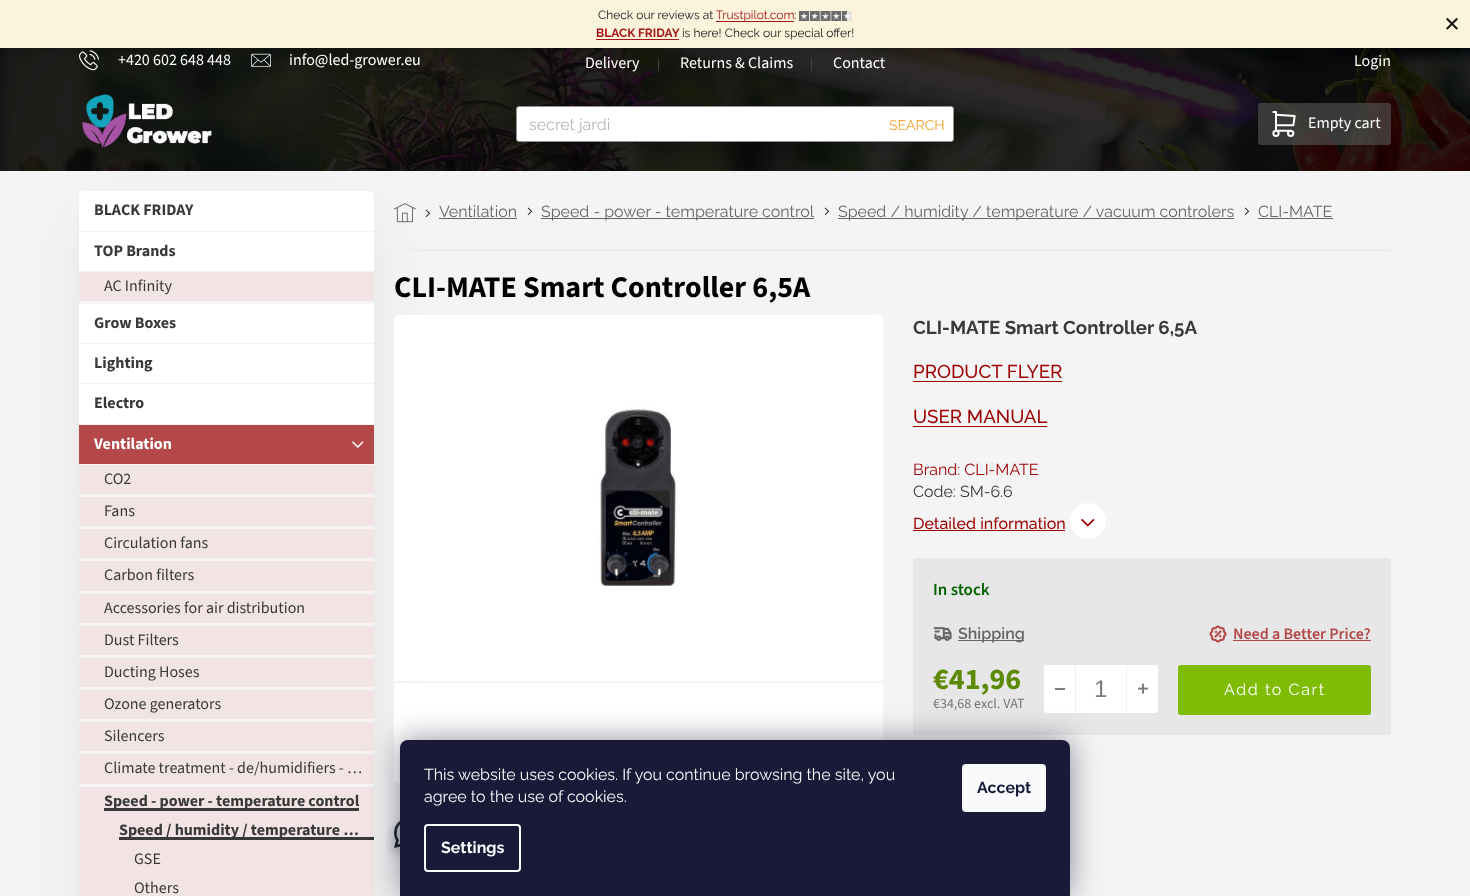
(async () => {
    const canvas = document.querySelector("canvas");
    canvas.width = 1470;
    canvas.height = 896;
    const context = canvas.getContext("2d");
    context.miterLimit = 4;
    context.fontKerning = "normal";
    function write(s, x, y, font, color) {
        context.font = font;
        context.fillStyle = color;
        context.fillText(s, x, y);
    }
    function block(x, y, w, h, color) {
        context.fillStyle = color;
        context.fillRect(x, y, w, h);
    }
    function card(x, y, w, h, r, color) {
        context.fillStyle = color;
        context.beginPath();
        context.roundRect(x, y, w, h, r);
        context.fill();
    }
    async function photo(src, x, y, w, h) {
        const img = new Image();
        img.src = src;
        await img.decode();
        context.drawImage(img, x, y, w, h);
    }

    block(0, 0, 1470, 896, "rgb(244, 244, 244)");
    await photo("media/5.png", 0, 48, 1470, 123);
    context.fillStyle = "rgba(0, 0, 0, 0.14)";
    context.filter = "blur(5px)";
    context.beginPath();
    context.rect(0, 5, 1470, 48);
    context.fill();
    context.filter = "none";
    block(0, 0, 1470, 48, "rgb(252, 243, 221)");
    write("Check our reviews at", 598, 19, "12px Raleway", "rgb(24, 24, 24)");
    block(716, 21, 78, 1, "rgb(165, 24, 24)");
    write("Trustpilot.com", 716, 19, "12px Raleway", "rgb(165, 24, 24)");
    write(":", 794, 19, "12px Raleway", "rgb(24, 24, 24)");
    await photo("media/1.png", 799, 11, 53, 10);
    write("BLACK FRIDAY", 596, 37, "bold 12px Raleway", "rgb(165, 24, 24)");
    block(596, 39, 83, 1, "rgb(165, 24, 24)");
    write("is here! Check our special offer!", 682, 37, "12px Raleway", "rgb(24, 24, 24)");
    await photo("media/2.png", 1446, 17, 12, 13);
    await photo("media/3.png", 79, 50, 20, 21);
    write("+420 602 648 448", 118, 65, "16px 'Source Sans 3'", "rgb(255, 255, 255)");
    await photo("media/4.png", 251, 53, 20, 14);
    write("info@led-grower.eu", 289, 65, "16px 'Source Sans 3'", "rgb(255, 255, 255)");
    write("Delivery", 585, 68, "16px 'Source Sans 3'", "rgb(255, 255, 255)");
    write("|", 657, 69, "14px Raleway", "rgb(77, 77, 77)");
    write("Returns & Claims", 680, 68, "16px 'Source Sans 3'", "rgb(255, 255, 255)");
    write("|", 810, 69, "14px Raleway", "rgb(77, 77, 77)");
    write("Contact", 833, 68, "16px 'Source Sans 3'", "rgb(255, 255, 255)");
    write("Login", 1354, 66, "16px 'Source Sans 3'", "rgb(255, 255, 255)");
    context.fillStyle = "rgba(41, 39, 44, 0.1)";
    context.filter = "blur(30px)";
    context.beginPath();
    context.rect(90, 226, 275, 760);
    context.fill();
    context.filter = "none";
    await photo("media/6.png", 82, 94, 130, 54);
    context.fillStyle = "rgb(255, 255, 255)";
    context.beginPath();
    context.roundRect(516.5, 106.5, 437, 35, 2.5);
    context.fill();
    context.strokeStyle = "rgb(145, 145, 145)";
    context.stroke();
    write("secret jardi", 529, 130, "16px Raleway", "rgb(182, 182, 182)");
    write("SEARCH", 889, 130, "14px Raleway", "rgb(247, 161, 43)");
    card(1258, 103, 133, 42, 3, "rgba(81, 81, 81, 0.65)");
    await photo("media/7.png", 1272, 111, 24, 26);
    write("Empty cart", 1308, 128, "16px 'Source Sans 3'", "rgb(255, 255, 255)");
    card(79, 191, 295, 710, 5, "rgb(255, 255, 255)");
    block(79, 231, 295, 1, "rgb(244, 244, 244)");
    write("BLACK FRIDAY", 94, 215, "bold 16px 'Source Sans 3'", "rgb(57, 57, 57)");
    block(79, 271, 295, 1, "rgb(244, 244, 244)");
    write("TOP Brands", 94, 256, "bold 16px 'Source Sans 3'", "rgb(57, 57, 57)");
    block(79, 272, 295, 29, "rgb(242, 228, 228)");
    block(79, 301, 295, 3, "rgb(244, 244, 244)");
    write("AC Infinity", 104, 291, "16px 'Source Sans 3'", "rgb(57, 57, 57)");
    block(79, 343, 295, 1, "rgb(244, 244, 244)");
    write("Grow Boxes", 94, 328, "bold 16px 'Source Sans 3'", "rgb(57, 57, 57)");
    block(79, 383, 295, 1, "rgb(244, 244, 244)");
    write("Lighting", 94, 368, "bold 16px 'Source Sans 3'", "rgb(57, 57, 57)");
    block(79, 424, 295, 1, "rgb(244, 244, 244)");
    write("Electro", 94, 408, "bold 16px 'Source Sans 3'", "rgb(57, 57, 57)");
    block(79, 464, 295, 1, "rgb(244, 244, 244)");
    block(79, 425, 295, 39, "rgb(180, 72, 72)");
    write("Ventilation", 94, 449, "bold 16px 'Source Sans 3'", "rgb(255, 255, 255)");
    await photo("media/8.png", 352, 441, 12, 7);
    block(79, 465, 295, 431, "rgb(242, 228, 228)");
    block(79, 494, 295, 3, "rgb(244, 244, 244)");
    write("CO2", 104, 484, "16px 'Source Sans 3'", "rgb(57, 57, 57)");
    block(79, 526, 295, 3, "rgb(244, 244, 244)");
    write("Fans", 104, 516, "16px 'Source Sans 3'", "rgb(57, 57, 57)");
    block(79, 558, 295, 3, "rgb(244, 244, 244)");
    write("Circulation fans", 104, 548, "16px 'Source Sans 3'", "rgb(57, 57, 57)");
    block(79, 591, 295, 3, "rgb(244, 244, 244)");
    write("Carbon filters", 104, 580, "16px 'Source Sans 3'", "rgb(57, 57, 57)");
    block(79, 623, 295, 3, "rgb(244, 244, 244)");
    write("Accessories for air distribution", 104, 613, "16px 'Source Sans 3'", "rgb(57, 57, 57)");
    block(79, 655, 295, 3, "rgb(244, 244, 244)");
    write("Dust Filters", 104, 645, "16px 'Source Sans 3'", "rgb(57, 57, 57)");
    block(79, 687, 295, 3, "rgb(244, 244, 244)");
    write("Ducting Hoses", 104, 677, "16px 'Source Sans 3'", "rgb(57, 57, 57)");
    block(79, 719, 295, 3, "rgb(244, 244, 244)");
    write("Ozone generators", 104, 709, "16px 'Source Sans 3'", "rgb(57, 57, 57)");
    block(79, 751, 295, 3, "rgb(244, 244, 244)");
    write("Silencers", 104, 741, "16px 'Source Sans 3'", "rgb(57, 57, 57)");
    block(79, 784, 295, 3, "rgb(244, 244, 244)");
    write("Climate treatment - de/humidifiers - …", 104, 773, "16px 'Source Sans 3'", "rgb(57, 57, 57)");
    block(104, 808, 255, 3, "rgb(57, 57, 57)");
    write("Speed - power - temperature control", 104, 806, "bold 16px 'Source Sans 3'", "rgb(57, 57, 57)");
    block(119, 837, 255, 3, "rgb(57, 57, 57)");
    write("Speed / humidity / temperature …", 119, 835, "bold 16px 'Source Sans 3'", "rgb(57, 57, 57)");
    write("GSE", 134, 864, "16px 'Source Sans 3'", "rgb(57, 57, 57)");
    write("Others", 134, 893, "16px 'Source Sans 3'", "rgb(57, 57, 57)");
    block(394, 249, 997, 2, "rgb(238, 238, 238)");
    await photo("media/9.png", 394, 203, 22, 20);
    await photo("media/10.png", 425, 209, 6, 9);
    write("Ventilation", 439, 217, "16px Raleway", "rgb(102, 102, 102)");
    block(439, 218, 78, 1, "rgb(102, 102, 102)");
    await photo("media/11.png", 527, 207, 6, 9);
    block(541, 218, 273, 1, "rgb(102, 102, 102)");
    write("Speed - power - temperature control", 541, 217, "16px Raleway", "rgb(102, 102, 102)");
    await photo("media/11.png", 824, 207, 6, 9);
    block(838, 218, 396, 1, "rgb(102, 102, 102)");
    write("Speed / humidity / temperature / vacuum controlers", 838, 217, "16px Raleway", "rgb(102, 102, 102)");
    await photo("media/11.png", 1244, 207, 6, 9);
    write("CLI-MATE", 1258, 217, "16px Raleway", "rgb(102, 102, 102)");
    block(1258, 218, 75, 1, "rgb(102, 102, 102)");
    write("CLI-MATE Smart Controller 6,5A", 394, 297, "bold 30px 'Source Sans 3'", "rgb(0, 0, 0)");
    await photo("media/12.png", 394, 315, 489, 366);
    context.fillStyle = "rgb(255, 255, 255)";
    context.beginPath();
    context.roundRect(394, 683, 489, 100, [0, 0, 5, 5]);
    context.fill();
    await photo("media/13.png", 386, 815, 14, 44);
    write("CLI-MATE Smart Controller 6,5A", 913, 334, "bold 18.7px Raleway", "rgb(57, 57, 57)");
    write("PRODUCT FLYER", 913, 378, "500 18.7px Raleway", "rgb(156, 0, 0)");
    block(913, 381, 149, 1, "rgb(156, 0, 0)");
    write("USER MANUAL", 913, 423, "500 18.7px Raleway", "rgb(156, 0, 0)");
    block(913, 426, 134, 1, "rgb(156, 0, 0)");
    write("Brand: CLI-MATE", 913, 475, "16px Raleway", "rgb(156, 0, 0)");
    write("Code: SM-6.6", 913, 497, "16px Raleway", "rgb(57, 57, 57)");
    write("Detailed information", 913, 529, "500 16px Raleway", "rgb(156, 0, 0)");
    block(913, 530, 152, 1, "rgb(156, 0, 0)");
    context.fillStyle = "rgb(255, 255, 255)";
    context.beginPath();
    context.arc(1088, 521, 18, 0, Math.PI * 2);
    context.fill();
    await photo("media/14.png", 1081, 518, 14, 9);
    context.fillStyle = "rgb(231, 231, 231)";
    context.beginPath();
    context.roundRect(913, 558, 478, 87, [3, 3, 0, 0]);
    context.fill();
    write("In stock", 933, 595, "600 17px 'Source Sans 3'", "rgb(3, 100, 0)");
    await photo("media/15.png", 933, 627, 19, 14);
    block(958, 640, 66, 1, "rgb(102, 102, 102)");
    write("Shipping", 958, 639, "600 16px Raleway", "rgb(102, 102, 102)");
    await photo("media/16.png", 1209, 625, 18, 18);
    write("Need a Better Price?", 1233, 639, "600 16px 'Source Sans 3'", "rgb(180, 72, 72)");
    block(1233, 640, 138, 1, "rgb(180, 72, 72)");
    context.fillStyle = "rgb(231, 231, 231)";
    context.beginPath();
    context.roundRect(913, 645, 478, 90, [0, 0, 3, 3]);
    context.fill();
    write("€41,96", 933, 689, "bold 30px 'Source Sans 3'", "rgb(92, 138, 4)");
    write("€34,68 excl. VAT", 933, 708, "14px 'Source Sans 3'", "rgb(118, 118, 118)");
    context.fillStyle = "rgb(255, 255, 255)";
    context.beginPath();
    context.roundRect(1044, 665, 32, 48, [3, 0, 0, 3]);
    context.fill();
    block(1075, 665, 1, 48, "rgb(239, 239, 239)");
    block(1055, 688, 10, 2, "rgb(125, 125, 125)");
    block(1076, 665, 50, 48, "rgb(255, 255, 255)");
    write("1", 1094, 697, "24px Liberation Sans", "rgb(125, 125, 125)");
    context.fillStyle = "rgb(255, 255, 255)";
    context.beginPath();
    context.roundRect(1126, 665, 32, 48, [0, 3, 3, 0]);
    context.fill();
    block(1126, 665, 1, 48, "rgb(239, 239, 239)");
    await photo("media/17.png", 1138, 683, 10, 11);
    card(1178, 665, 193, 50, 3, "rgb(126, 188, 6)");
    context.letterSpacing = "1.6px";
    write("Add to Cart", 1224, 695, "16px Raleway", "rgb(255, 255, 255)");
    context.fillStyle = "rgba(27, 25, 57, 0.5)";
    context.filter = "blur(15px)";
    context.beginPath();
    context.roundRect(400, 740, 670, 156, 8);
    context.fill();
    context.filter = "none";
    context.fillStyle = "rgb(26, 25, 55)";
    context.beginPath();
    context.roundRect(400, 740, 670, 156, [8, 8, 0, 0]);
    context.fill();
    context.letterSpacing = "0px";
    write("This website uses cookies. If you continue browsing the site, you", 424, 780, "16px Raleway", "rgb(248, 250, 251)");
    write("agree to the use of cookies.", 424, 802, "16px Raleway", "rgb(248, 250, 251)");
    context.beginPath();
    context.roundRect(425, 825, 95, 46, 3);
    context.strokeStyle = "rgb(248, 250, 251)";
    context.lineWidth = 2;
    context.stroke();
    write("Settings", 441, 853, "bold 16px Raleway", "rgb(248, 250, 251)");
    card(962, 764, 84, 48, 4, "rgb(248, 250, 251)");
    write("Accept", 977, 793, "bold 16px Raleway", "rgb(26, 25, 55)");
})();
